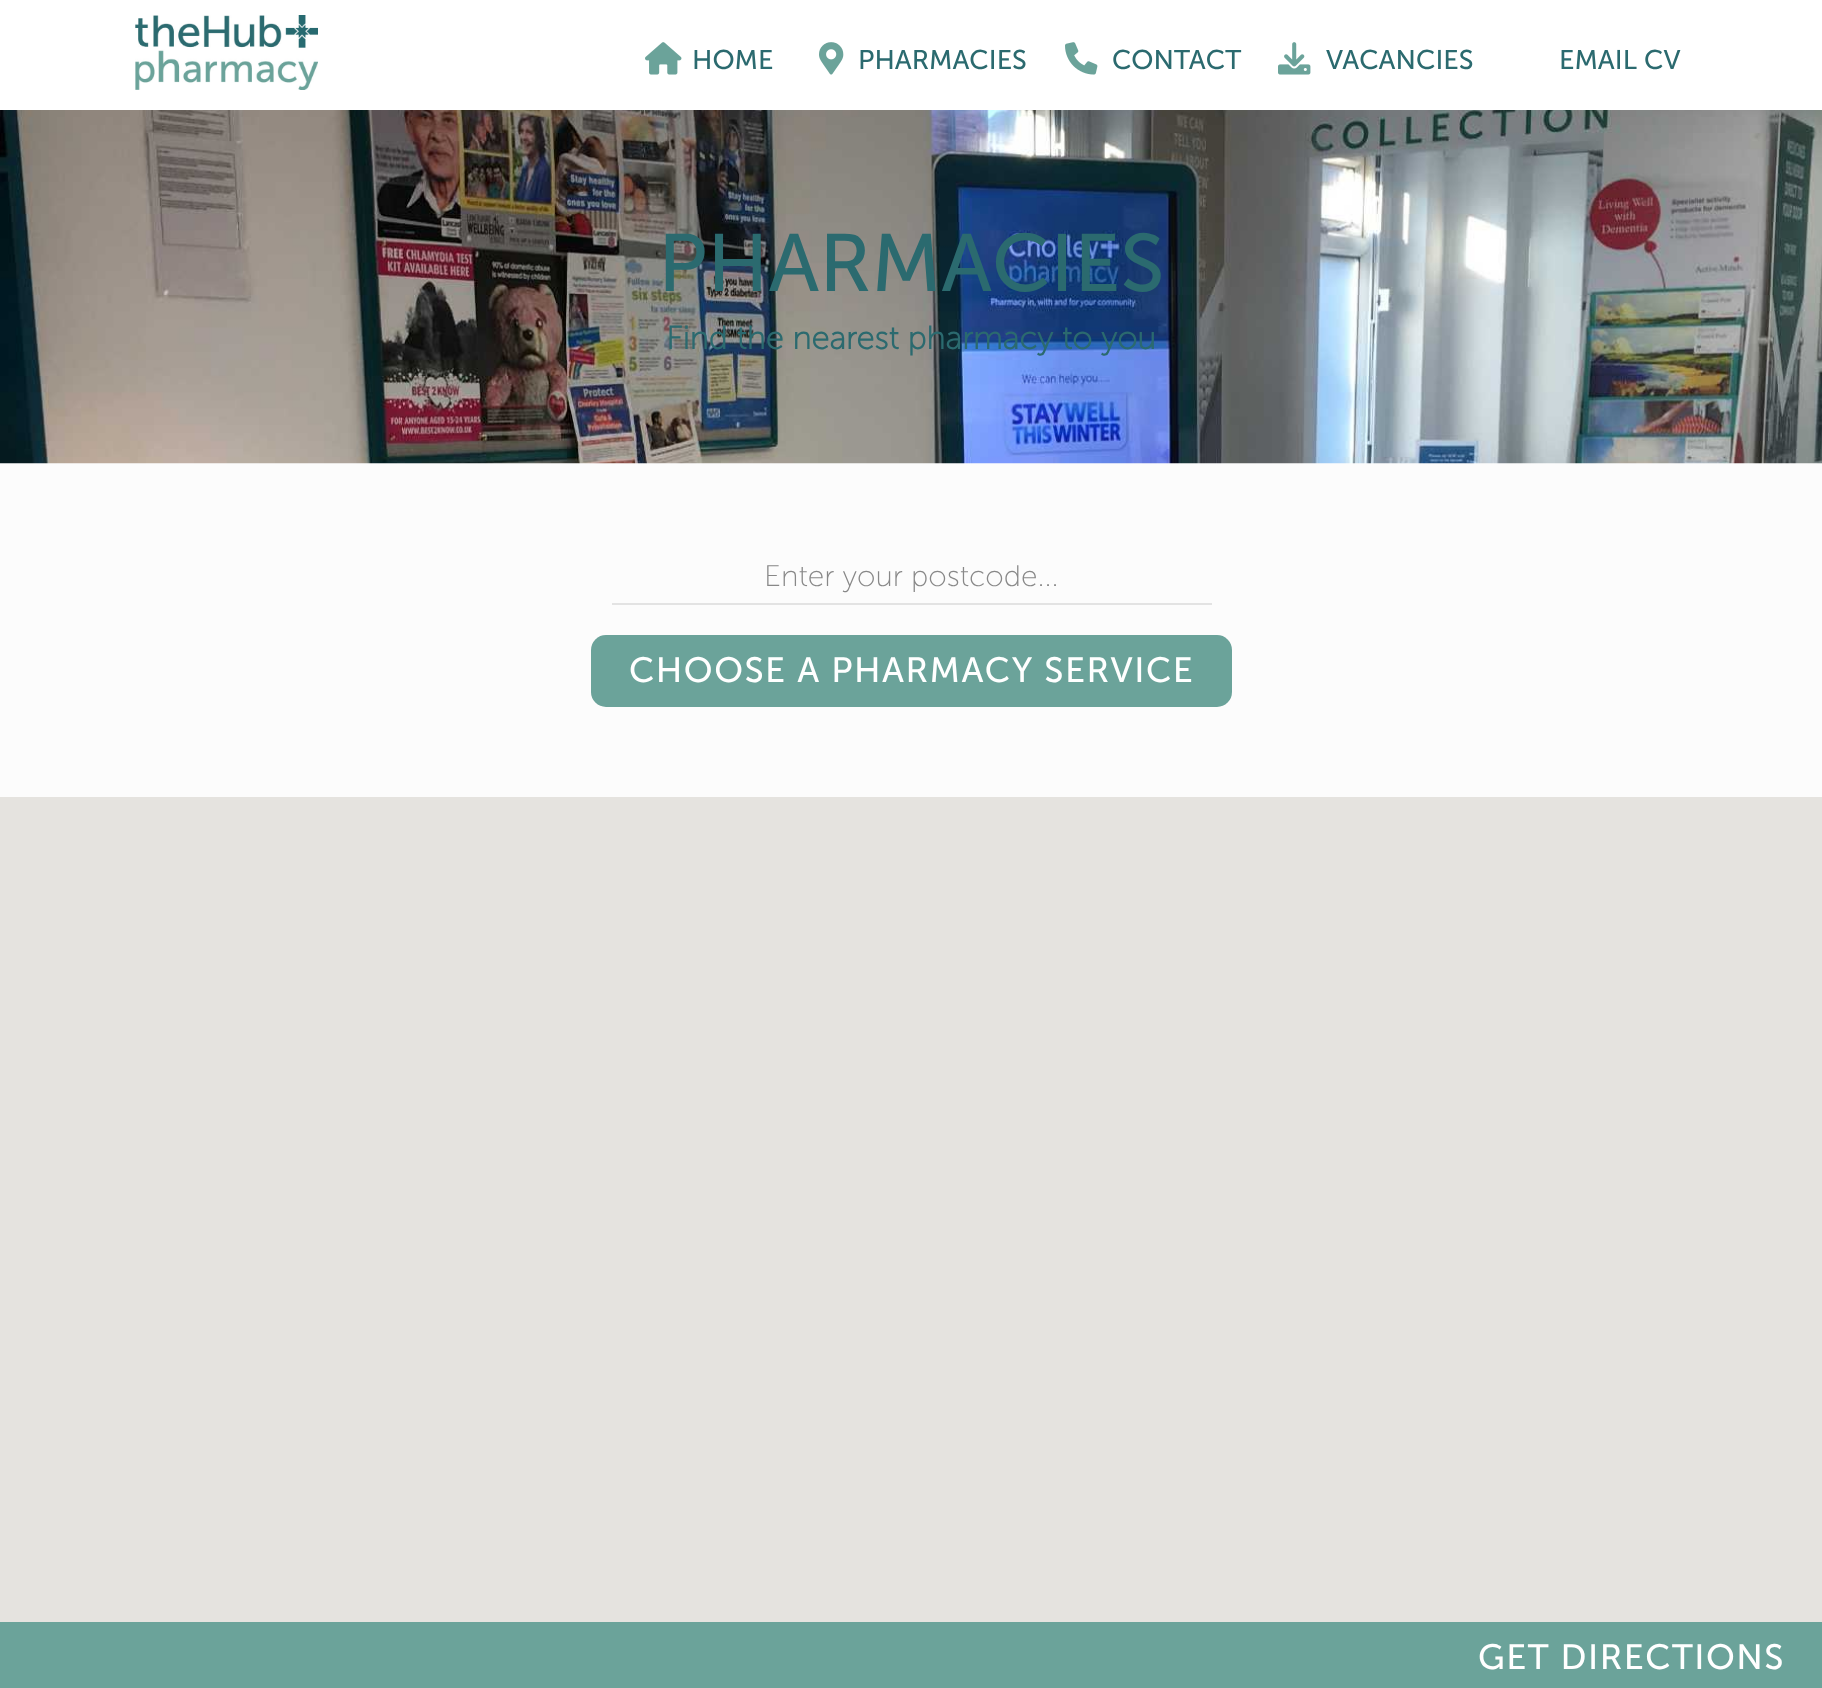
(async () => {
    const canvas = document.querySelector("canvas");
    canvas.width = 1822;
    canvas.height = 1688;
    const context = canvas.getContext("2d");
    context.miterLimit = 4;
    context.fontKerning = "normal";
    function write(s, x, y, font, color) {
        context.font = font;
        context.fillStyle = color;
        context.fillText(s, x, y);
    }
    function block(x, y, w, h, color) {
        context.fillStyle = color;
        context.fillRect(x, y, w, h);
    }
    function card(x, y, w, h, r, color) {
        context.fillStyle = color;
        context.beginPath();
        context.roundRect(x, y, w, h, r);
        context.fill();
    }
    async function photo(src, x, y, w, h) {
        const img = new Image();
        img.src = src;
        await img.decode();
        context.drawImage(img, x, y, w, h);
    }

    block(0, 0, 1822, 1688, "rgb(252, 252, 252)");
    block(0, 0, 1822, 110, "rgb(255, 255, 255)");
    await photo("media/1.png", 135, 15, 183, 75);
    await photo("media/2.png", 645, 42, 37, 33);
    write("HOME", 692, 69, "27px Museo Sans", "rgb(43, 106, 111)");
    await photo("media/3.png", 819, 42, 25, 33);
    write("PHARMACIES", 858, 69, "27px Museo Sans", "rgb(43, 106, 111)");
    await photo("media/4.png", 1065, 42, 33, 33);
    write("CONTACT", 1112, 69, "27px Museo Sans", "rgb(43, 106, 111)");
    await photo("media/5.png", 1278, 42, 33, 33);
    write("VACANCIES", 1326, 69, "27px Museo Sans", "rgb(43, 106, 111)");
    write("EMAIL CV", 1559, 69, "27px Museo Sans", "rgb(43, 106, 111)");
    await photo("media/6.png", 0, 110, 1822, 354);
    write("PHARMACIES", 658, 291, "81px Museo Sans", "rgb(43, 106, 111)");
    write("Find the nearest pharmacy to you", 666, 349, "bold 32.4px Museo Sans", "rgb(43, 106, 111)");
    block(612, 603, 600, 2, "rgb(227, 227, 227)");
    write("Enter your postcode...", 764, 586, "200 29.75px Museo Sans", "rgb(136, 136, 136)");
    card(591, 635, 641, 72, 15, "rgb(107, 163, 154)");
    context.letterSpacing = "1.5px";
    write("CHOOSE A PHARMACY SERVICE", 629, 682, "35.1px Museo Sans", "rgb(255, 255, 255)");
    block(0, 797, 1822, 825, "rgb(229, 227, 223)");
    block(0, 1622, 1822, 66, "rgb(107, 163, 154)");
    write("GET DIRECTIONS", 1478, 1669, "35.1px Museo Sans", "rgb(255, 255, 255)");
})();
